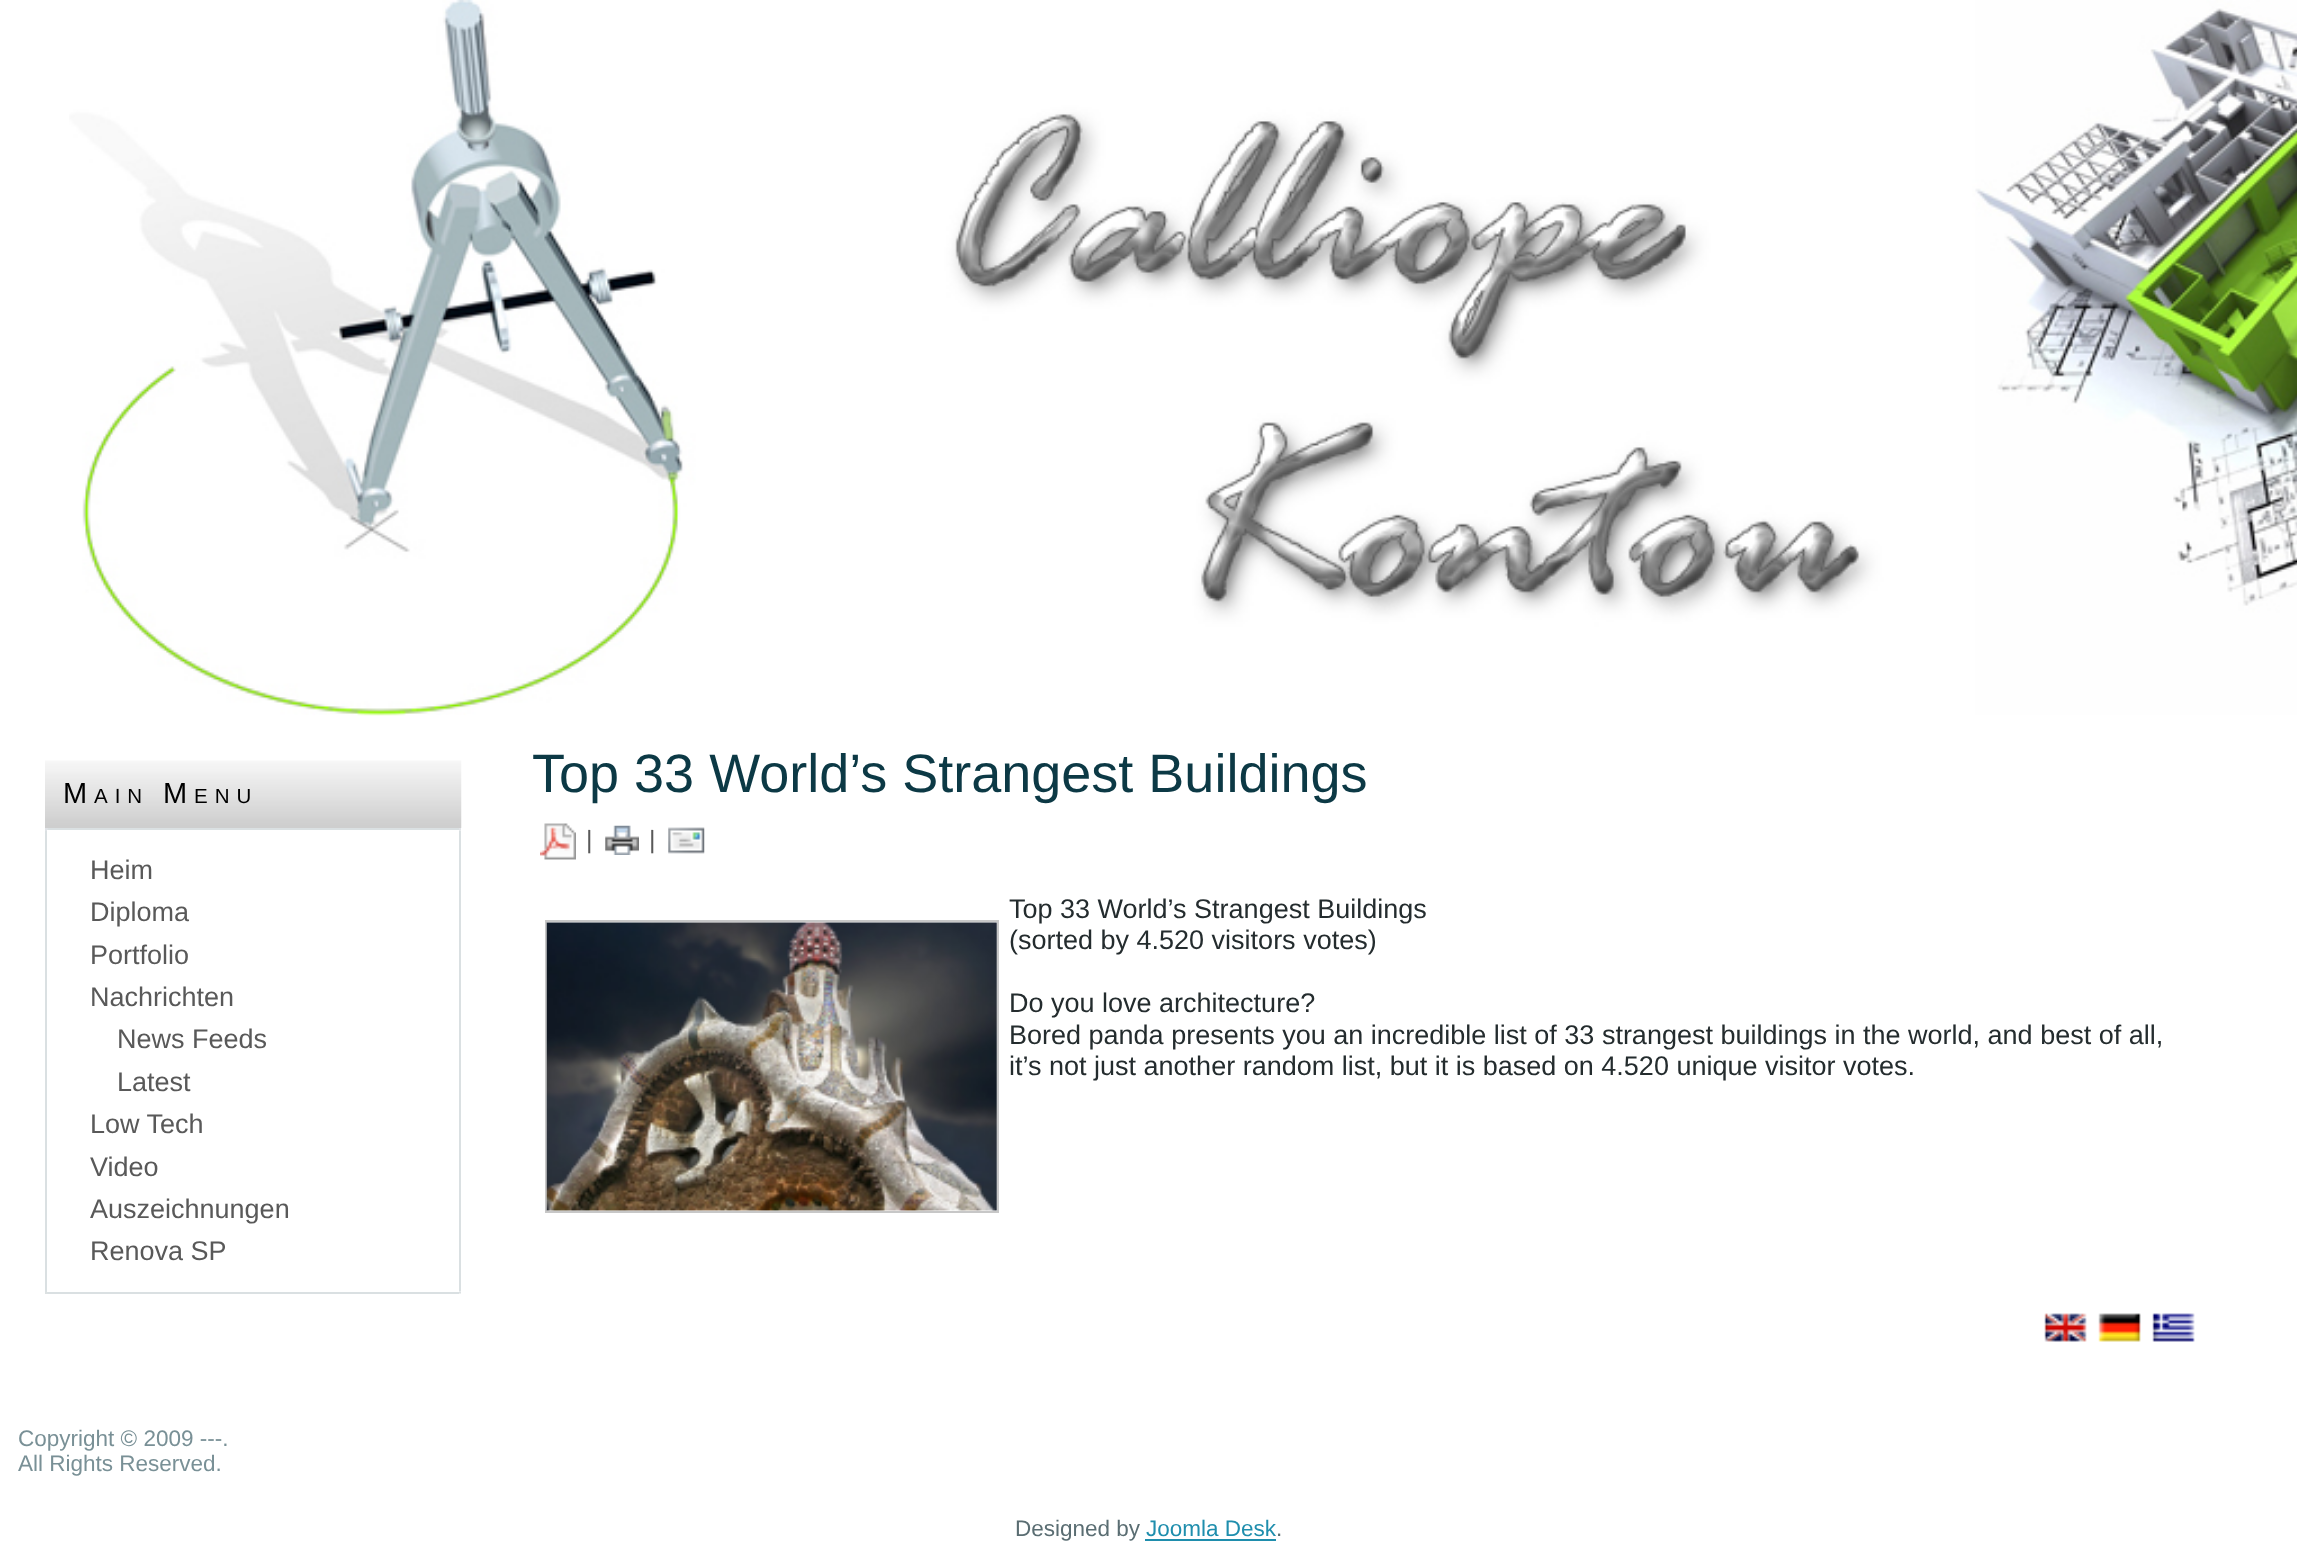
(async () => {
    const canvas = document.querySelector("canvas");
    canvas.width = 2297;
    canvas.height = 1548;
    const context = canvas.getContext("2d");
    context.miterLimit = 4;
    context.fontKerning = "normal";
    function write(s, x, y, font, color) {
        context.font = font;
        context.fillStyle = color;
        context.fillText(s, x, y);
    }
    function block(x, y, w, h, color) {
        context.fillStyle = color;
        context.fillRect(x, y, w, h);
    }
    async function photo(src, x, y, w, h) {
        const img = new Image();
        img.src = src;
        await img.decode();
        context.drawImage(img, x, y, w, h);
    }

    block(0, 0, 2297, 1548, "rgb(255, 255, 255)");
    await photo("media/1.png", 69, 0, 2228, 716);
    await photo("media/2.png", 45, 760, 417, 68);
    context.letterSpacing = "7px";
    write("M", 63, 803, "29px Liberation Sans", "rgb(0, 0, 0)");
    write("AIN", 94, 803, "20.5px Liberation Sans", "rgb(0, 0, 0)");
    write("M", 163, 803, "29px Liberation Sans", "rgb(0, 0, 0)");
    write("ENU", 194, 803, "20.5px Liberation Sans", "rgb(0, 0, 0)");
    block(45, 828, 3, 3, "rgb(224, 227, 231)");
    block(48, 828, 411, 2, "rgb(218, 224, 226)");
    await photo("media/3.png", 459, 828, 2, 3);
    block(45, 831, 2, 460, "rgb(218, 224, 226)");
    block(45, 1291, 3, 3, "rgb(220, 225, 226)");
    block(47, 830, 1, 462, "rgb(255, 255, 255)");
    context.letterSpacing = "0px";
    write("Heim", 90, 879, "27px Liberation Sans", "rgb(89, 89, 89)");
    write("Diploma", 90, 921, "27px Liberation Sans", "rgb(89, 89, 89)");
    write("Portfolio", 90, 964, "27px Liberation Sans", "rgb(89, 89, 89)");
    write("Nachrichten", 90, 1006, "27px Liberation Sans", "rgb(89, 89, 89)");
    write("News Feeds", 117, 1048, "27px Liberation Sans", "rgb(89, 89, 89)");
    write("Latest", 117, 1091, "27px Liberation Sans", "rgb(89, 89, 89)");
    write("Low Tech", 90, 1133, "27px Liberation Sans", "rgb(89, 89, 89)");
    write("Video", 90, 1176, "27px Liberation Sans", "rgb(89, 89, 89)");
    write("Auszeichnungen", 90, 1218, "27px Liberation Sans", "rgb(89, 89, 89)");
    write("Renova SP", 90, 1260, "27px Liberation Sans", "rgb(89, 89, 89)");
    await photo("media/5.png", 459, 1291, 2, 3);
    await photo("media/4.png", 459, 830, 2, 462);
    block(48, 1292, 411, 2, "rgb(218, 224, 226)");
    write("Top 33 World’s Strangest Buildings", 532, 792, "54px Liberation Sans", "rgb(12, 57, 69)");
    await photo("media/6.png", 540, 823, 36, 37);
    write("|", 586, 848, "25px Liberation Sans", "rgb(89, 89, 89)");
    await photo("media/7.png", 605, 825, 34, 30);
    write("|", 649, 848, "25px Liberation Sans", "rgb(89, 89, 89)");
    await photo("media/8.png", 668, 827, 37, 27);
    write("Top 33 World’s Strangest Buildings", 1009, 918, "27px Liberation Sans", "rgb(36, 44, 46)");
    context.strokeStyle = "rgb(199, 199, 199)";
    context.lineWidth = 2;
    context.strokeRect(546, 921, 452, 291);
    await photo("media/9.png", 546, 922, 451, 289);
    write("(sorted by 4.520 visitors votes)", 1009, 949, "27px Liberation Sans", "rgb(36, 44, 46)");
    write("Do you love architecture?", 1009, 1012, "27px Liberation Sans", "rgb(36, 44, 46)");
    write("Bored panda presents you an incredible list of 33 strangest buildings in the world, and best of all,", 1009, 1044, "27px Liberation Sans", "rgb(36, 44, 46)");
    write("it’s not just another random list, but it is based on 4.520 unique visitor votes.", 1009, 1075, "27px Liberation Sans", "rgb(36, 44, 46)");
    await photo("media/10.png", 2044, 1313, 43, 29);
    await photo("media/11.png", 2098, 1313, 43, 29);
    await photo("media/12.png", 2152, 1313, 43, 29);
    write("Copyright © 2009 ---.", 18, 1446, "22.5px Liberation Sans", "rgb(121, 144, 150)");
    write("All Rights Reserved.", 18, 1471, "22.5px Liberation Sans", "rgb(121, 144, 150)");
    write("Designed by", 1015, 1536, "22.5px Liberation Sans", "rgb(90, 109, 114)");
    write("Joomla Desk", 1146, 1536, "22.5px Liberation Sans", "rgb(31, 142, 173)");
    block(1145, 1539, 131, 2, "rgb(31, 142, 173)");
    write(".", 1276, 1536, "22.5px Liberation Sans", "rgb(90, 109, 114)");
})();
